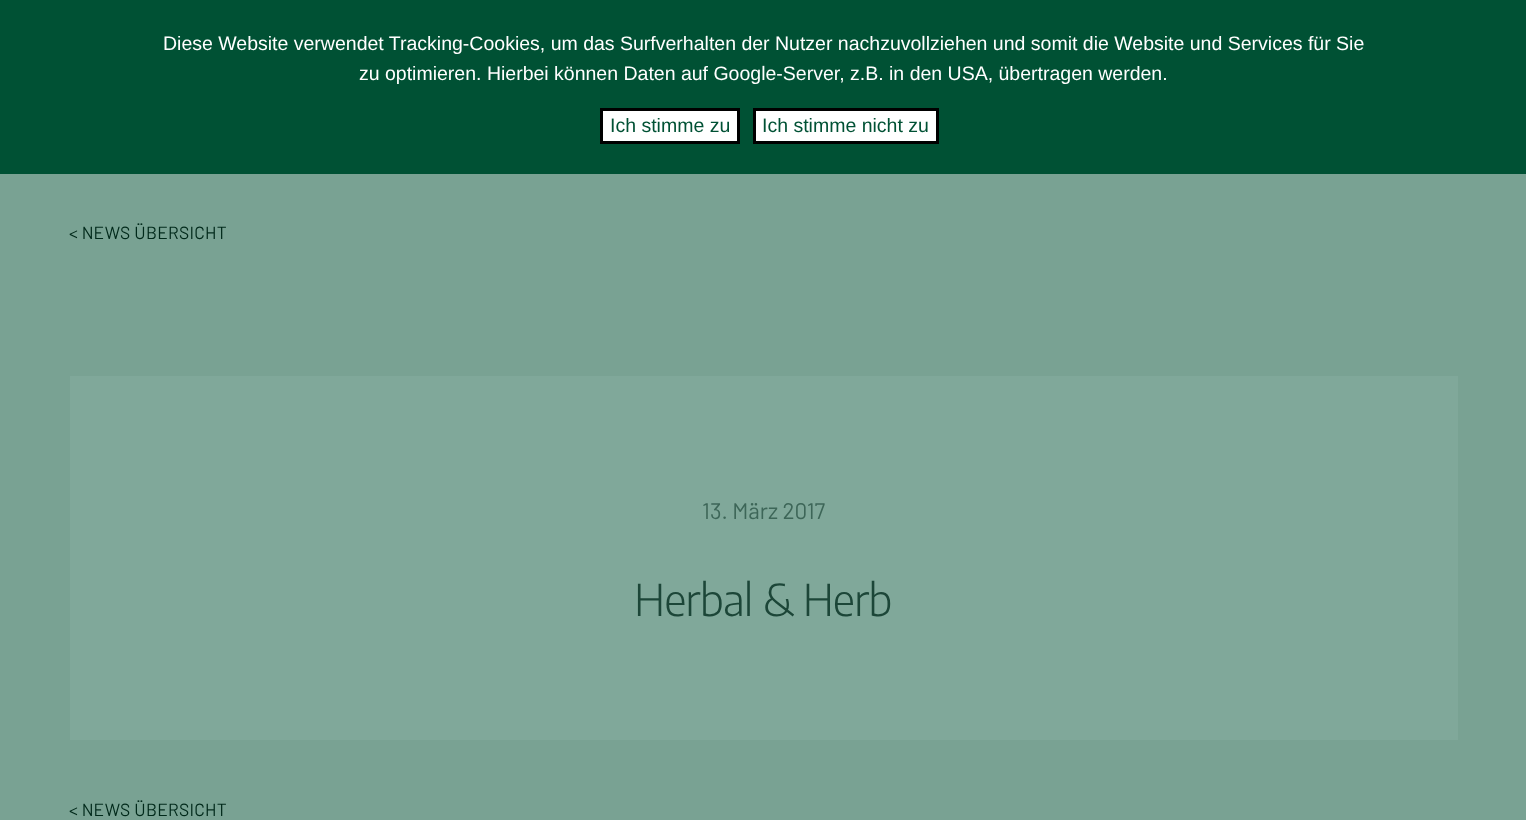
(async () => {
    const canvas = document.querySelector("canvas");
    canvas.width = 1526;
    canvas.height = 820;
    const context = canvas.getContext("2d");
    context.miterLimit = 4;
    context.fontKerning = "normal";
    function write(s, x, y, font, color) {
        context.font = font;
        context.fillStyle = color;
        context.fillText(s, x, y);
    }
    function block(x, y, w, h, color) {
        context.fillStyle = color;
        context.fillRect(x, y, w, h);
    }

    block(0, 0, 1526, 820, "rgb(121, 162, 147)");
    block(0, 0, 1526, 174, "rgb(0, 81, 52)");
    write("Diese Website verwendet Tracking-Cookies, um das Surfverhalten der Nutzer nachzuvollziehen und somit die Website und Services für Sie", 163, 50, "19.5px Liberation Sans", "rgb(255, 255, 255)");
    write("zu optimieren. Hierbei können Daten auf Google-Server, z.B. in den USA, übertragen werden.", 359, 80, "19.5px Liberation Sans", "rgb(255, 255, 255)");
    context.beginPath();
    context.rect(601.5, 109.5, 137, 33);
    context.fill();
    context.strokeStyle = "rgb(0, 0, 0)";
    context.lineWidth = 3;
    context.stroke();
    write("Ich stimme zu", 610, 132, "19.5px Liberation Sans", "rgb(0, 81, 52)");
    context.fillStyle = "rgb(255, 255, 255)";
    context.beginPath();
    context.rect(754.5, 109.5, 183, 33);
    context.fill();
    context.stroke();
    write("Ich stimme nicht zu", 762, 132, "19.5px Liberation Sans", "rgb(0, 81, 52)");
    context.letterSpacing = "0.25px";
    write("< NEWS ÜBERSICHT", 69, 239, "17.5px Barlow", "rgb(0, 41, 26)");
    block(70, 376, 1388, 364, "rgb(128, 168, 154)");
    context.letterSpacing = "0px";
    write("13. März 2017", 702, 519, "22.5px Barlow", "rgb(61, 102, 88)");
    context.letterSpacing = "-1px";
    write("Herbal & Herb", 634, 616, "300 43.75px Encode Sans Condensed", "rgb(28, 70, 56)");
    context.letterSpacing = "0.25px";
    write("< NEWS ÜBERSICHT", 69, 816, "17.5px Barlow", "rgb(0, 41, 26)");
})();
